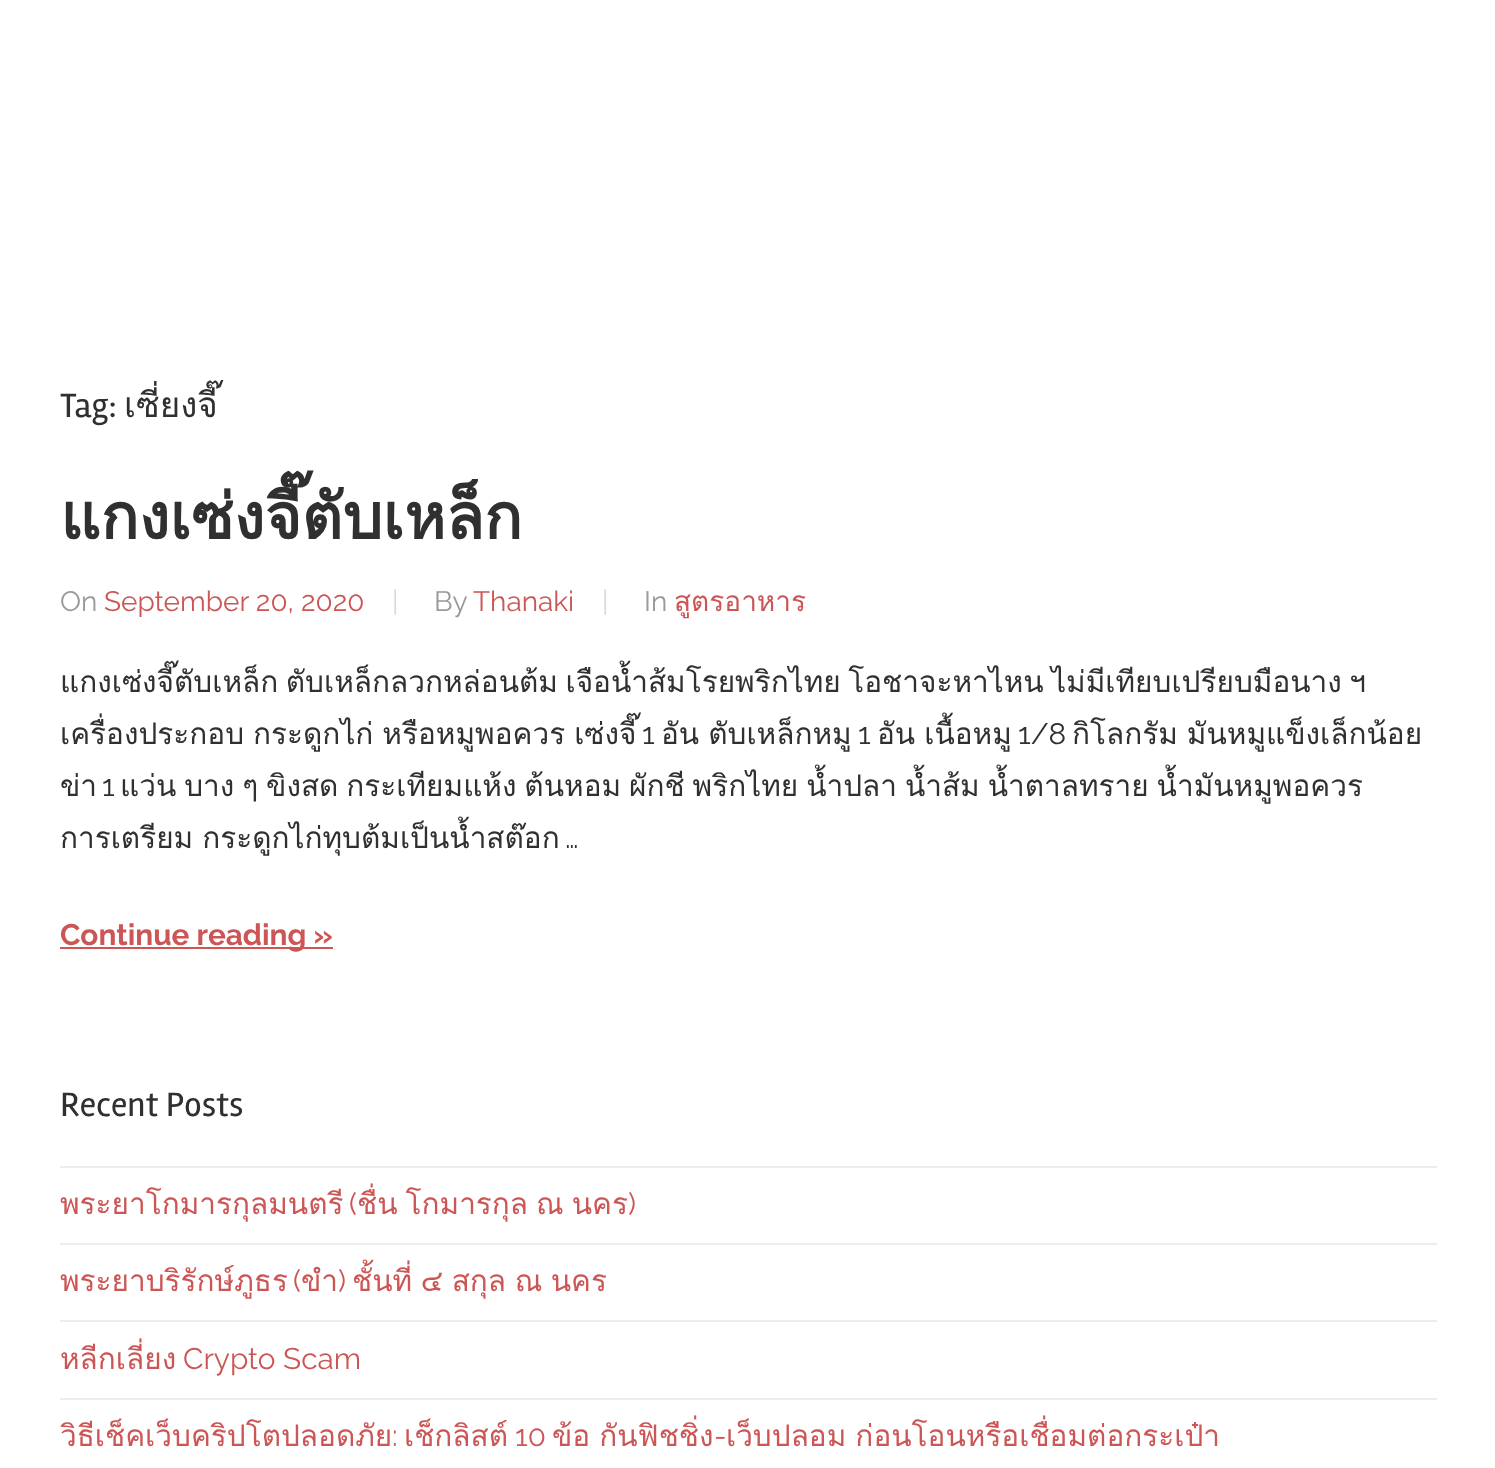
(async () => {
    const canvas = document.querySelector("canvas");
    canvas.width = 1495;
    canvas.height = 1468;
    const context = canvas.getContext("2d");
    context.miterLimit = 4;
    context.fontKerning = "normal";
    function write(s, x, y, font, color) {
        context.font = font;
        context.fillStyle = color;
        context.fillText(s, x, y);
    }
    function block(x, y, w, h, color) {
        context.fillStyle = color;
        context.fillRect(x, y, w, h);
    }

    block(0, 0, 1495, 1468, "rgb(255, 255, 255)");
    write("Tag:", 60, 417, "35px Rambla", "rgb(48, 48, 48)");
    write("เซี่ยงจี๊", 124, 417, "35px Loma", "rgb(48, 48, 48)");
    write("แกงเซ่งจี๊ตับเหล็ก", 60, 539, "bold 63px Loma", "rgb(48, 48, 48)");
    write("On", 60, 611, "28px Raleway", "rgb(153, 153, 153)");
    write("September 20, 2020", 104, 611, "28px Raleway", "rgb(204, 85, 85)");
    write("|", 392, 611, "28px Raleway", "rgb(217, 217, 217)");
    write("By", 434, 611, "28px Raleway", "rgb(153, 153, 153)");
    write("Thanaki", 473, 611, "28px Raleway", "rgb(204, 85, 85)");
    write("|", 602, 611, "28px Raleway", "rgb(217, 217, 217)");
    write("In", 644, 611, "28px Raleway", "rgb(153, 153, 153)");
    write("สูตรอาหาร", 674, 611, "28px Loma", "rgb(204, 85, 85)");
    context.wordSpacing = "-2.5px";
    write("แกงเซ่งจี๊ตับเหล็ก ตับเหล็กลวกหล่อนต้ม เจือน้ำส้มโรยพริกไทย โอชาจะหาไหน ไม่มีเทียบเปรียบมือนาง ฯ", 60, 692, "29.75px Loma", "rgb(48, 48, 48)");
    context.wordSpacing = "-1px";
    write("เครื่องประกอบ กระดูกไก่ หรือหมูพอควร เซ่งจี๊", 60, 744, "29.75px Loma", "rgb(48, 48, 48)");
    context.wordSpacing = "0px";
    write("1", 642, 744, "29.75px Raleway", "rgb(48, 48, 48)");
    context.wordSpacing = "-1px";
    write("อัน ตับเหล็กหมู", 661, 744, "29.75px Loma", "rgb(48, 48, 48)");
    context.wordSpacing = "0px";
    write("1", 858, 744, "29.75px Raleway", "rgb(48, 48, 48)");
    context.wordSpacing = "-1px";
    write("อัน เนื้อหมู", 877, 744, "29.75px Loma", "rgb(48, 48, 48)");
    context.wordSpacing = "0px";
    write("1/8", 1018, 744, "29.75px Raleway", "rgb(48, 48, 48)");
    context.wordSpacing = "-1px";
    write("กิโลกรัม มันหมูแข็งเล็กน้อย", 1072, 744, "29.75px Loma", "rgb(48, 48, 48)");
    context.wordSpacing = "0px";
    write("ข่า", 60, 796, "29.75px Loma", "rgb(48, 48, 48)");
    write("1", 102, 796, "29.75px Raleway", "rgb(48, 48, 48)");
    context.wordSpacing = "-2.1px";
    write("แว่น บาง ๆ ขิงสด กระเทียมแห้ง ต้นหอม ผักชี พริกไทย น้ำปลา น้ำส้ม น้ำตาลทราย น้ำมันหมูพอควร", 120, 796, "29.75px Loma", "rgb(48, 48, 48)");
    context.wordSpacing = "-1px";
    write("การเตรียม กระดูกไก่ทุบต้มเป็นน้ำสต๊อก", 60, 848, "29.75px Loma", "rgb(48, 48, 48)");
    context.wordSpacing = "0px";
    write("…", 565, 848, "29.75px Raleway", "rgb(48, 48, 48)");
    block(60, 947, 273, 2, "rgb(204, 85, 85)");
    write("Continue reading »", 60, 945, "bold 29.75px Raleway", "rgb(204, 85, 85)");
    write("Recent Posts", 60, 1116, "35px Rambla", "rgb(48, 48, 48)");
    block(60, 1166, 1377, 2, "rgb(236, 236, 236)");
    block(60, 1243, 1377, 2, "rgb(236, 236, 236)");
    write("พระยาโกมารกุลมนตรี", 60, 1214, "29.75px Loma", "rgb(204, 85, 85)");
    write("(", 349, 1214, "29.75px Raleway", "rgb(204, 85, 85)");
    context.wordSpacing = "-2px";
    write("ชื่น โกมารกุล ณ นคร", 357, 1214, "29.75px Loma", "rgb(204, 85, 85)");
    context.wordSpacing = "0px";
    write(")", 628, 1214, "29.75px Raleway", "rgb(204, 85, 85)");
    block(60, 1320, 1377, 2, "rgb(236, 236, 236)");
    write("พระยาบริรักษ์ภูธร", 60, 1291, "29.75px Loma", "rgb(204, 85, 85)");
    write("(", 293, 1291, "29.75px Raleway", "rgb(204, 85, 85)");
    write("ขํา", 301, 1291, "29.75px Loma", "rgb(204, 85, 85)");
    write(")", 338, 1291, "29.75px Raleway", "rgb(204, 85, 85)");
    context.wordSpacing = "-1.5px";
    write("ชั้นที่ ๔ สกุล ณ นคร", 352, 1291, "29.75px Loma", "rgb(204, 85, 85)");
    block(60, 1398, 1377, 2, "rgb(236, 236, 236)");
    context.wordSpacing = "0px";
    write("หลีกเลี่ยง", 60, 1369, "29.75px Loma", "rgb(204, 85, 85)");
    write("Crypto Scam", 183, 1369, "29.75px Raleway", "rgb(204, 85, 85)");
    write("วิธีเช็คเว็บคริปโตปลอดภัย", 60, 1446, "29.75px Loma", "rgb(204, 85, 85)");
    write(":", 392, 1446, "29.75px Raleway", "rgb(204, 85, 85)");
    write("เช็กลิสต์", 404, 1446, "29.75px Loma", "rgb(204, 85, 85)");
    write("10", 515, 1446, "29.75px Raleway", "rgb(204, 85, 85)");
    context.wordSpacing = "-1px";
    write("ข้อ กันฟิชชิ่ง", 552, 1446, "29.75px Loma", "rgb(204, 85, 85)");
    context.wordSpacing = "0px";
    write("-", 714, 1446, "29.75px Raleway", "rgb(204, 85, 85)");
    context.wordSpacing = "-1px";
    write("เว็บปลอม ก่อนโอนหรือเชื่อมต่อกระเป๋า", 726, 1446, "29.75px Loma", "rgb(204, 85, 85)");
})();
